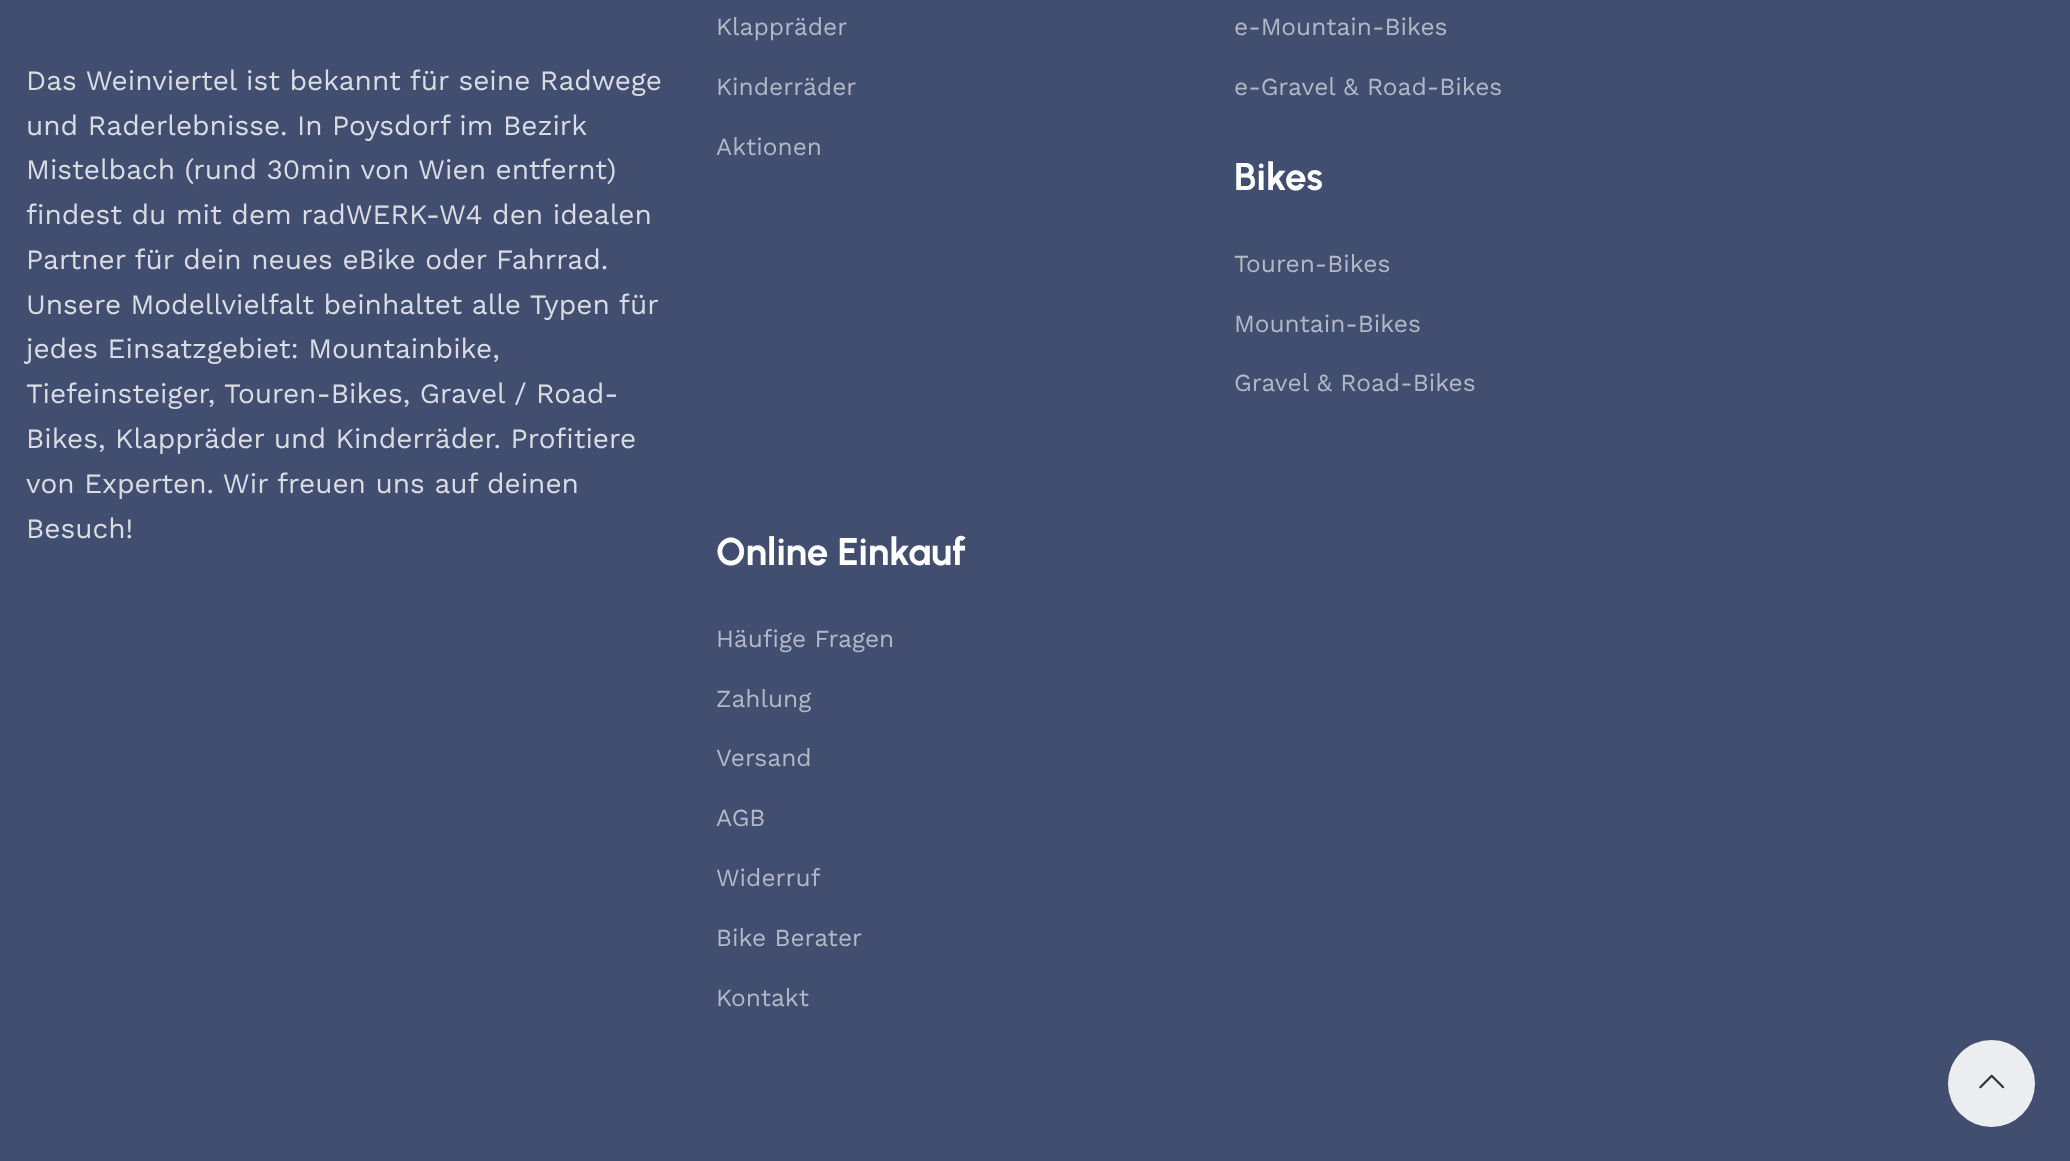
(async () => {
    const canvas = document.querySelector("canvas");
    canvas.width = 2070;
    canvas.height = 1161;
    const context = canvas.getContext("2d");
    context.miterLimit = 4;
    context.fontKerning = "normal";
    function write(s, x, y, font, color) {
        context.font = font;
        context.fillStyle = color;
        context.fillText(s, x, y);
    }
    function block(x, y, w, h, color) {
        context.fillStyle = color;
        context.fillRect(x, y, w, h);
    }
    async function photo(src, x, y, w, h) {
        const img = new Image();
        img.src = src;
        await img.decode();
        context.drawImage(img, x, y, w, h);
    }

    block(0, 0, 2070, 1161, "rgb(65, 78, 112)");
    write("Das Weinviertel ist bekannt für seine Radwege", 26, 90, "28px Work Sans", "rgb(217, 220, 226)");
    write("und Raderlebnisse. In Poysdorf im Bezirk", 26, 135, "28px Work Sans", "rgb(217, 220, 226)");
    write("Mistelbach (rund 30min von Wien entfernt)", 26, 179, "28px Work Sans", "rgb(217, 220, 226)");
    write("findest du mit dem radWERK-W4 den idealen", 26, 224, "28px Work Sans", "rgb(217, 220, 226)");
    write("Partner für dein neues eBike oder Fahrrad.", 26, 269, "28px Work Sans", "rgb(217, 220, 226)");
    write("Unsere Modellvielfalt beinhaltet alle Typen für", 26, 314, "28px Work Sans", "rgb(217, 220, 226)");
    write("jedes Einsatzgebiet: Mountainbike,", 26, 358, "28px Work Sans", "rgb(217, 220, 226)");
    write("Tiefeinsteiger, Touren-Bikes, Gravel / Road-", 26, 403, "28px Work Sans", "rgb(217, 220, 226)");
    write("Bikes, Klappräder und Kinderräder. Profitiere", 26, 448, "28px Work Sans", "rgb(217, 220, 226)");
    write("von Experten. Wir freuen uns auf deinen", 26, 493, "28px Work Sans", "rgb(217, 220, 226)");
    write("Besuch!", 26, 538, "28px Work Sans", "rgb(217, 220, 226)");
    write("Klappräder", 716, 35, "24.5px Work Sans", "rgb(179, 184, 198)");
    write("Kinderräder", 716, 95, "24.5px Work Sans", "rgb(179, 184, 198)");
    write("Aktionen", 716, 155, "24.5px Work Sans", "rgb(179, 184, 198)");
    write("e-Mountain-Bikes", 1234, 35, "24.5px Work Sans", "rgb(179, 184, 198)");
    write("e-Gravel & Road-Bikes", 1234, 95, "24.5px Work Sans", "rgb(179, 184, 198)");
    write("Bikes", 1234, 190, "bold 38.5px Urbanist", "rgb(255, 255, 255)");
    write("Touren-Bikes", 1234, 272, "24.5px Work Sans", "rgb(179, 184, 198)");
    write("Mountain-Bikes", 1234, 332, "24.5px Work Sans", "rgb(179, 184, 198)");
    write("Gravel & Road-Bikes", 1234, 391, "24.5px Work Sans", "rgb(179, 184, 198)");
    write("Online Einkauf", 716, 565, "bold 38.5px Urbanist", "rgb(255, 255, 255)");
    write("Häufige Fragen", 716, 647, "24.5px Work Sans", "rgb(179, 184, 198)");
    write("Zahlung", 716, 707, "24.5px Work Sans", "rgb(179, 184, 198)");
    write("Versand", 716, 766, "24.5px Work Sans", "rgb(179, 184, 198)");
    write("AGB", 716, 826, "24.5px Work Sans", "rgb(179, 184, 198)");
    write("Widerruf", 716, 886, "24.5px Work Sans", "rgb(179, 184, 198)");
    write("Bike Berater", 716, 946, "24.5px Work Sans", "rgb(179, 184, 198)");
    write("Kontakt", 716, 1006, "24.5px Work Sans", "rgb(179, 184, 198)");
    context.fillStyle = "rgba(255, 255, 255, 0.9)";
    context.beginPath();
    context.arc(1991.5, 1083.5, 43.5, 0, Math.PI * 2);
    context.fill();
    await photo("media/1.png", 1979, 1074, 26, 15);
})();
